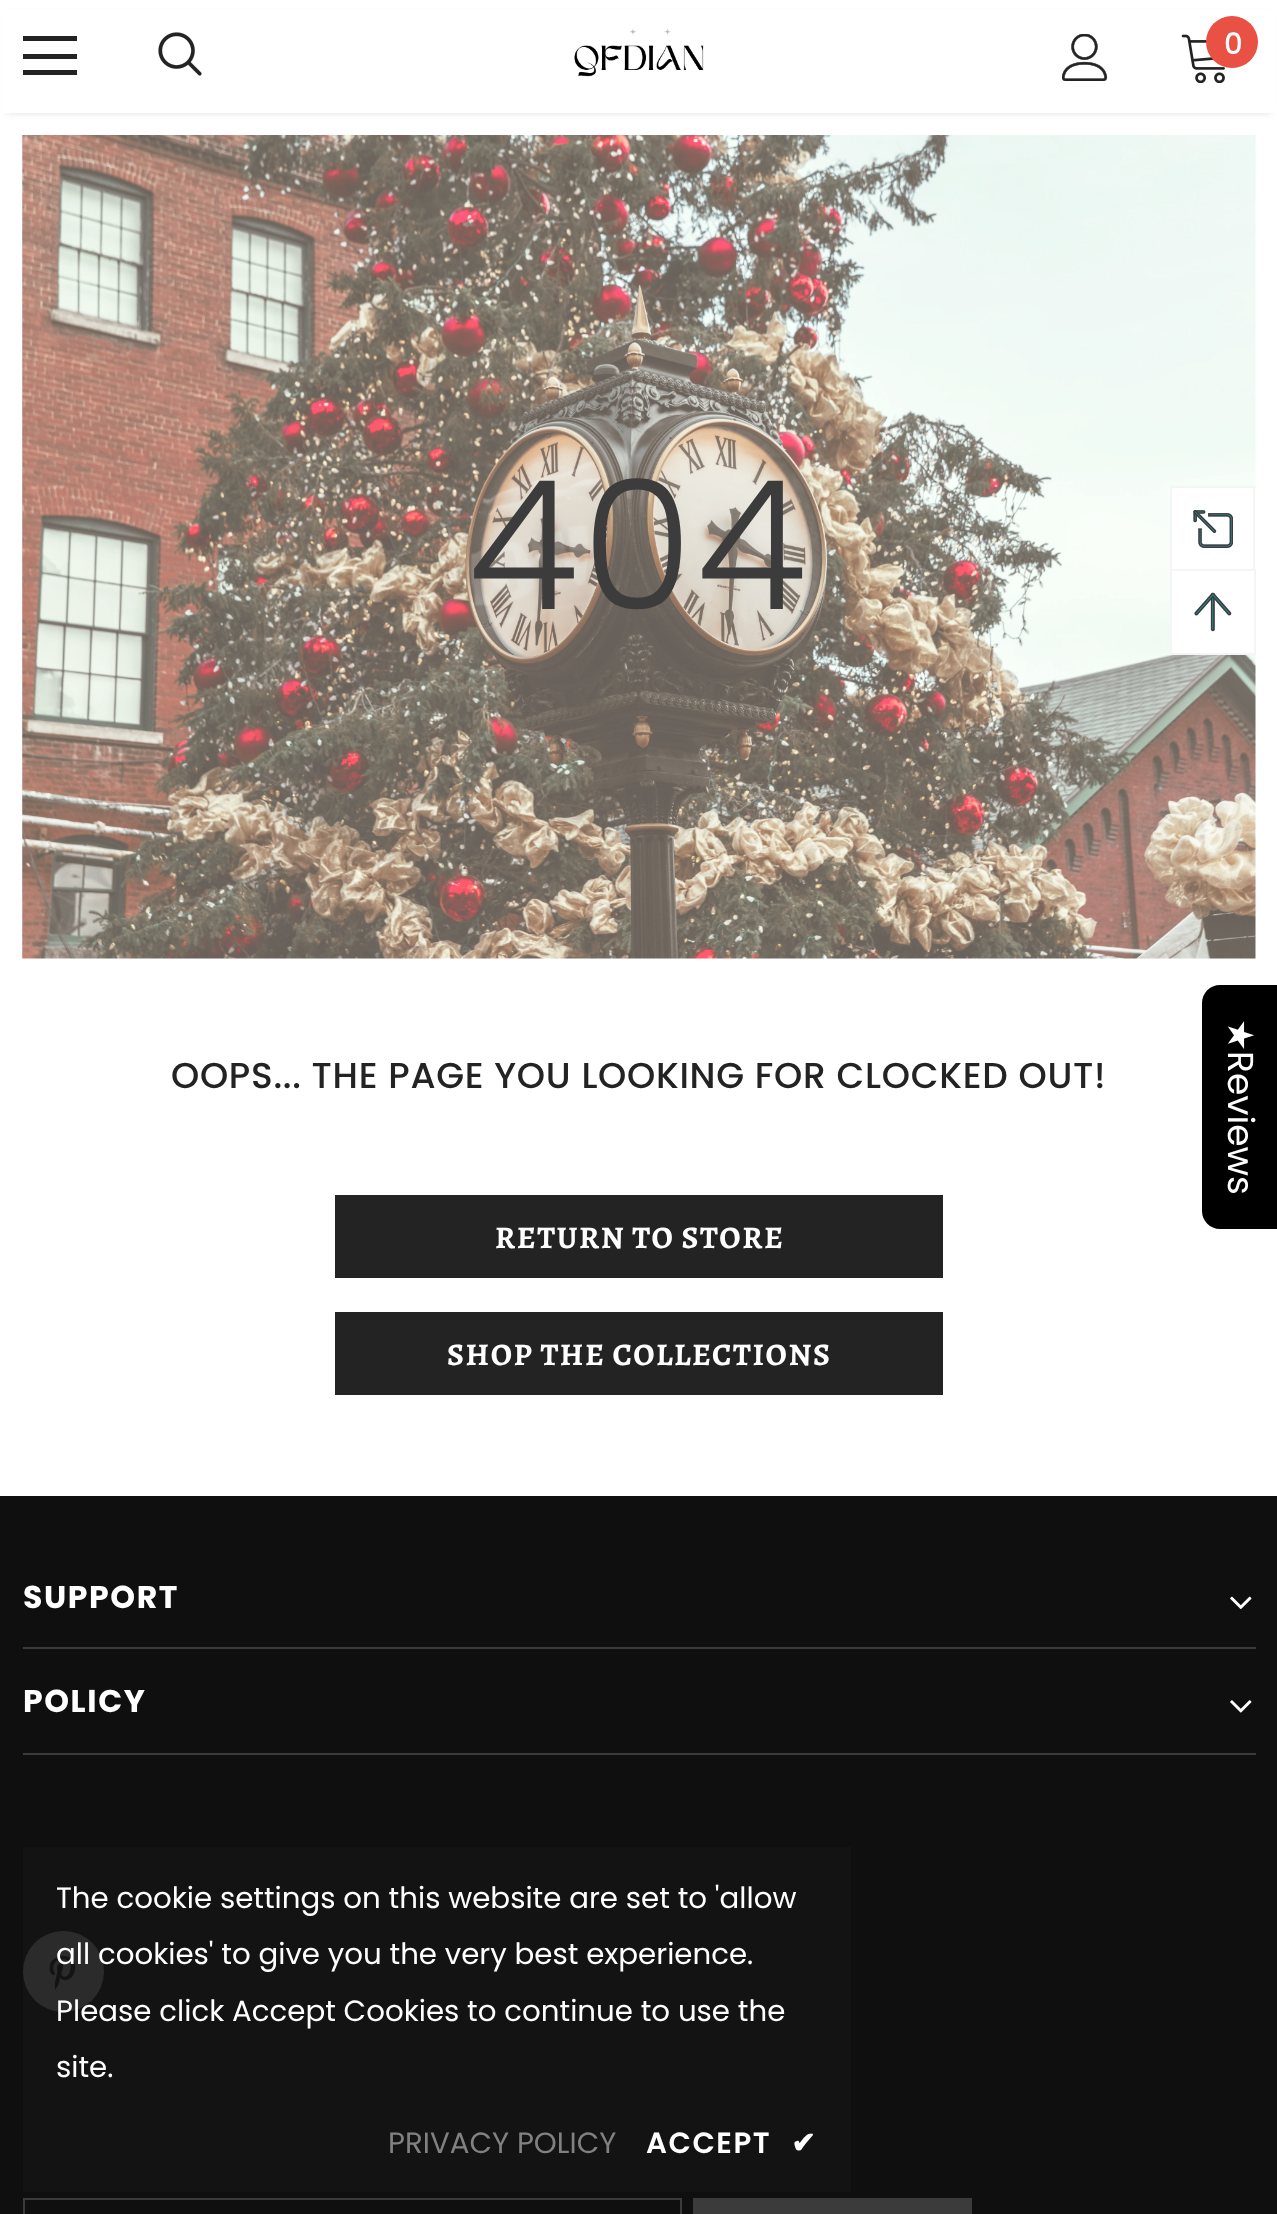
(async () => {
    const canvas = document.querySelector("canvas");
    canvas.width = 1277;
    canvas.height = 2214;
    const context = canvas.getContext("2d");
    context.miterLimit = 4;
    context.fontKerning = "normal";
    function write(s, x, y, font, color) {
        context.font = font;
        context.fillStyle = color;
        context.fillText(s, x, y);
    }
    function block(x, y, w, h, color) {
        context.fillStyle = color;
        context.fillRect(x, y, w, h);
    }
    async function photo(src, x, y, w, h) {
        const img = new Image();
        img.src = src;
        await img.decode();
        context.drawImage(img, x, y, w, h);
    }

    block(0, 0, 1277, 2214, "rgb(255, 255, 255)");
    context.fillStyle = "rgba(0, 0, 0, 0.12)";
    context.filter = "blur(3.5px)";
    context.beginPath();
    context.rect(7, 14, 1264, 99);
    context.fill();
    context.filter = "none";
    block(2, 9, 1274, 104, "rgb(255, 255, 255)");
    block(23, 36, 54, 5, "rgb(35, 35, 35)");
    block(23, 54, 54, 5, "rgb(35, 35, 35)");
    block(23, 70, 54, 5, "rgb(35, 35, 35)");
    await photo("media/1.png", 158, 32, 44, 44);
    await photo("media/2.png", 574, 28, 130, 49);
    await photo("media/3.png", 1062, 34, 46, 47);
    await photo("media/4.png", 1181, 34, 44, 49);
    context.fillStyle = "rgb(233, 81, 68)";
    context.beginPath();
    context.arc(1232, 42, 26, 0, Math.PI * 2);
    context.fill();
    write("0", 1224, 54, "500 29.25px Poppins", "rgb(255, 255, 255)");
    await photo("media/5.png", 22, 135, 1234, 824);
    context.letterSpacing = "3.5px";
    write("404", 468, 609, "300 180px Poppins", "rgb(60, 60, 60)");
    context.letterSpacing = "0.7px";
    write("OOPS... THE PAGE YOU LOOKING FOR CLOCKED OUT!", 171, 1088, "500 36px Poppins", "rgb(35, 35, 35)");
    block(335, 1195, 608, 83, "rgb(35, 35, 35)");
    context.letterSpacing = "1.6px";
    write("RETURN TO STORE", 495, 1248, "bold 31.5px Alegreya", "rgb(255, 255, 255)");
    block(335, 1312, 608, 83, "rgb(35, 35, 35)");
    write("SHOP THE COLLECTIONS", 447, 1365, "bold 31.5px Alegreya", "rgb(255, 255, 255)");
    block(0, 1496, 1277, 718, "rgb(15, 15, 15)");
    block(23, 1647, 1233, 2, "rgb(59, 59, 59)");
    write("SUPPORT", 23, 1608, "bold 31.5px Poppins", "rgb(255, 255, 255)");
    await photo("media/6.png", 1230, 1596, 22, 13);
    block(23, 1753, 1233, 2, "rgb(59, 59, 59)");
    write("POLICY", 23, 1712, "bold 31.5px Poppins", "rgb(255, 255, 255)");
    await photo("media/7.png", 1230, 1700, 22, 13);
    context.beginPath();
    context.arc(63.5, 1971.5, 40.5, 0, Math.PI * 2);
    context.fill();
    await photo("media/8.png", 49, 1955, 27, 35);
    context.strokeStyle = "rgb(59, 59, 59)";
    context.lineWidth = 2;
    context.strokeRect(24, 2199, 657, 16);
    block(693, 2198, 279, 16, "rgb(59, 59, 59)");
    block(23, 1847, 828, 345, "rgba(20, 20, 20, 0.9)");
    context.letterSpacing = "0px";
    write("The cookie settings on this website are set to 'allow", 56, 1908, "29.25px Poppins", "rgb(255, 255, 255)");
    write("all cookies' to give you the very best experience.", 56, 1964, "29.25px Poppins", "rgb(255, 255, 255)");
    write("Please click Accept Cookies to continue to use the", 56, 2021, "29.25px Poppins", "rgb(255, 255, 255)");
    write("site.", 56, 2077, "29.25px Poppins", "rgb(255, 255, 255)");
    write("PRIVACY POLICY", 388, 2153, "29.25px Poppins", "rgb(129, 129, 129)");
    context.letterSpacing = "1.5px";
    write("ACCEPT", 646, 2153, "600 29.25px Poppins", "rgb(255, 255, 255)");
    write("✔", 791, 2153, "bold 29.25px DejaVu Sans", "rgb(255, 255, 255)");
    block(1172, 488, 84, 165, "rgb(255, 255, 255)");
    block(1170, 486, 86, 2, "rgb(245, 245, 246)");
    block(1253, 486, 2, 83, "rgb(245, 245, 246)");
    block(1170, 486, 2, 83, "rgb(245, 245, 246)");
    await photo("media/9.png", 1193, 510, 40, 38);
    context.strokeStyle = "rgb(245, 245, 246)";
    context.strokeRect(1171, 570, 84, 84);
    await photo("media/10.png", 1194, 592, 38, 40);
    context.fillStyle = "rgb(0, 0, 0)";
    context.beginPath();
    context.moveTo(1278, 985);
    context.lineTo(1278, 1229);
    context.lineTo(1220, 1229);
    context.bezierCurveTo(1210, 1229, 1202, 1221, 1202, 1211);
    context.lineTo(1202, 1003);
    context.bezierCurveTo(1202, 993, 1210, 985, 1220, 985);
    context.closePath();
    context.fill();
    context.letterSpacing = "0px";
    context.font = "36px DejaVu Sans";
    context.fillStyle = "rgb(255, 255, 255)";
    context.save();
    context.translate(1228, 1019);
    context.rotate(90 * Math.PI / 180);
    context.fillText("★", 0, 0);
    context.restore();
    context.font = "36px Poppins";
    context.save();
    context.translate(1228, 1051);
    context.rotate(90 * Math.PI / 180);
    context.fillText("Reviews", 0, 0);
    context.restore();
})();
